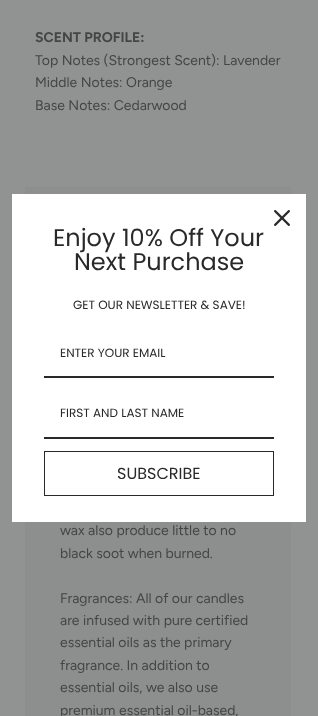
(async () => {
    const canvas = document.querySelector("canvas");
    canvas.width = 318;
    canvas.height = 716;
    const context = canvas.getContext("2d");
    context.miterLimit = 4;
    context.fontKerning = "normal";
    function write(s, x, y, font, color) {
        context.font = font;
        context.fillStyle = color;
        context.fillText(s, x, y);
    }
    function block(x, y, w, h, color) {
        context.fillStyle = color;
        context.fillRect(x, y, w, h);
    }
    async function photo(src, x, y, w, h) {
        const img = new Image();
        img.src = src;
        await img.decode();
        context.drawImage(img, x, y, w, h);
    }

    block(0, 0, 318, 716, "rgb(145, 146, 146)");
    write("SCENT PROFILE:", 35, 42, "bold 14px Figtree", "rgb(68, 69, 69)");
    write("Top Notes (Strongest Scent): Lavender", 35, 65, "14px Figtree", "rgb(68, 69, 69)");
    write("Middle Notes: Orange", 35, 87, "14px Figtree", "rgb(68, 69, 69)");
    write("Base Notes: Cedarwood", 35, 110, "14px Figtree", "rgb(68, 69, 69)");
    block(25, 187, 266, 529, "rgb(141, 142, 142)");
    write("wax also produce little to no", 60, 535, "14px Figtree", "rgb(68, 69, 69)");
    write("black soot when burned.", 60, 558, "14px Figtree", "rgb(68, 69, 69)");
    write("Fragrances: All of our candles", 60, 603, "14px Figtree", "rgb(68, 69, 69)");
    write("are infused with pure certified", 60, 625, "14px Figtree", "rgb(68, 69, 69)");
    write("essential oils as the primary", 60, 647, "14px Figtree", "rgb(68, 69, 69)");
    write("fragrance. In addition to", 60, 670, "14px Figtree", "rgb(68, 69, 69)");
    write("essential oils, we also use", 60, 692, "14px Figtree", "rgb(68, 69, 69)");
    write("premium essential oil-based,", 60, 715, "14px Figtree", "rgb(68, 69, 69)");
    block(12, 194, 294, 328, "rgb(255, 255, 255)");
    await photo("media/1.png", 274, 210, 16, 16);
    write("Enjoy 10% Off Your", 53, 246, "24px Poppins", "rgb(41, 41, 41)");
    write("Next Purchase", 74, 270, "24px Poppins", "rgb(41, 41, 41)");
    write("GET OUR NEWSLETTER & SAVE!", 73, 309, "12px Poppins", "rgb(41, 41, 41)");
    block(44, 376, 230, 2, "rgb(41, 41, 41)");
    write("ENTER YOUR EMAIL", 60, 357, "12px Poppins", "rgb(41, 41, 41)");
    block(44, 437, 230, 2, "rgb(41, 41, 41)");
    write("FIRST AND LAST NAME", 60, 417, "12px Poppins", "rgb(41, 41, 41)");
    context.strokeStyle = "rgb(41, 41, 41)";
    context.strokeRect(44.5, 451.5, 229, 44);
    write("SUBSCRIBE", 117, 479, "16px Poppins", "rgb(41, 41, 41)");
})();
